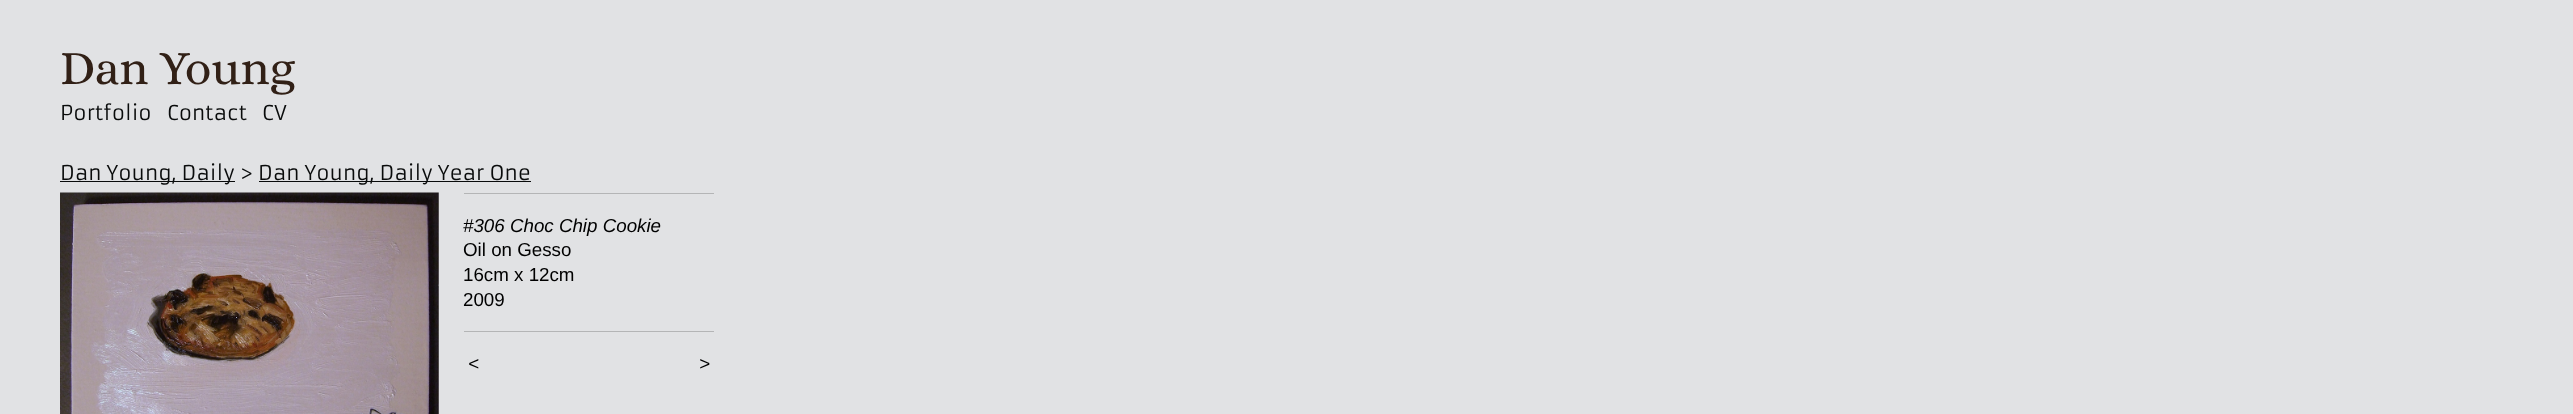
(async () => {
    const canvas = document.querySelector("canvas");
    canvas.width = 2573;
    canvas.height = 414;
    const context = canvas.getContext("2d");
    context.miterLimit = 4;
    context.fontKerning = "normal";
    function write(s, x, y, font, color) {
        context.font = font;
        context.fillStyle = color;
        context.fillText(s, x, y);
    }
    function block(x, y, w, h, color) {
        context.fillStyle = color;
        context.fillRect(x, y, w, h);
    }
    async function photo(src, x, y, w, h) {
        const img = new Image();
        img.src = src;
        await img.decode();
        context.drawImage(img, x, y, w, h);
    }

    block(0, 0, 2573, 414, "rgb(225, 226, 228)");
    write("Dan Young", 60, 84, "48.75px Alice", "rgb(49, 32, 22)");
    write("Portfolio", 60, 120, "20px Armata", "rgb(9, 11, 11)");
    write("Contact", 167, 120, "20px Armata", "rgb(9, 11, 11)");
    write("CV", 262, 120, "20px Armata", "rgb(9, 11, 11)");
    block(60, 181, 175, 1, "rgb(9, 11, 11)");
    write("Dan Young, Daily >", 60, 180, "20px Armata", "rgb(9, 11, 11)");
    block(259, 181, 272, 1, "rgb(9, 11, 11)");
    write("Dan Young, Daily Year One", 258, 180, "20px Armata", "rgb(9, 11, 11)");
    await photo("media/1.png", 60, 192, 379, 222);
    block(464, 193, 250, 1, "rgb(180, 181, 182)");
    write("#306 Choc Chip Cookie", 463, 232, "italic 18.75px Liberation Sans", "rgb(0, 0, 0)");
    write("Oil on Gesso", 463, 256, "18.75px Liberation Sans", "rgb(0, 0, 0)");
    write("16cm x 12cm", 463, 281, "18.75px Liberation Sans", "rgb(0, 0, 0)");
    write("2009", 463, 306, "18.75px Liberation Sans", "rgb(0, 0, 0)");
    block(464, 331, 250, 1, "rgb(180, 181, 182)");
    context.letterSpacing = "1px";
    write("<", 468, 370, "italic 18.75px Liberation Sans", "rgb(0, 0, 0)");
    write(">", 699, 370, "italic 18.75px Liberation Sans", "rgb(0, 0, 0)");
})();
